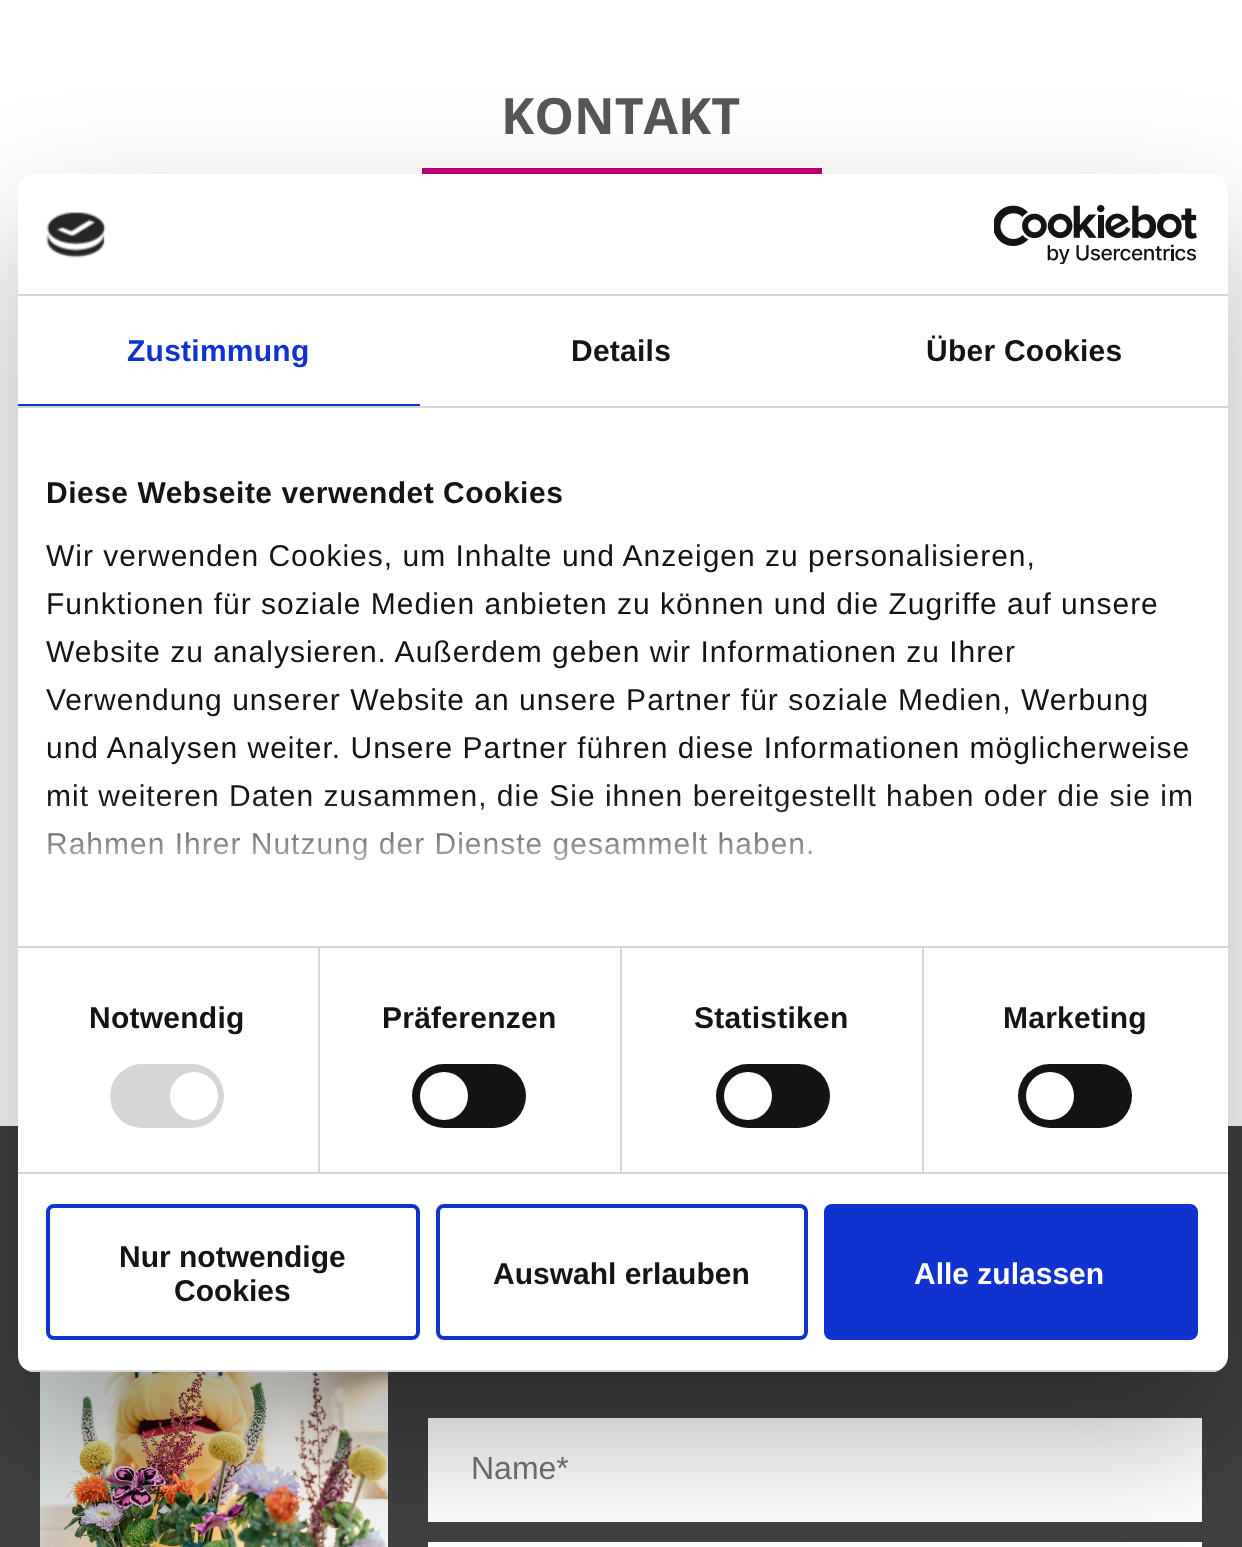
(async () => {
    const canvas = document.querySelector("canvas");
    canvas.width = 1242;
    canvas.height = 1547;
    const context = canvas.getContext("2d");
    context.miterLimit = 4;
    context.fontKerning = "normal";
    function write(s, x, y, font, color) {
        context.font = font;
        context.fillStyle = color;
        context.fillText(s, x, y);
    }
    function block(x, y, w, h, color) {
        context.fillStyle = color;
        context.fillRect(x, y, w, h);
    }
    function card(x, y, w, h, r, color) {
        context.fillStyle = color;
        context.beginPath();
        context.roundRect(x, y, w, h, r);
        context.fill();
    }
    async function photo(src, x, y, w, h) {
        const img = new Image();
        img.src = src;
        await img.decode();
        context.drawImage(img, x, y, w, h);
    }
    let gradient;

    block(0, 0, 1242, 1547, "rgb(255, 255, 255)");
    write("KONTAKT", 501, 134, "bold 50px Open Sans", "rgb(87, 87, 87)");
    block(422, 168, 400, 6, "rgb(196, 0, 122)");
    block(0, 1126, 1242, 421, "rgb(64, 64, 64)");
    await photo("media/1.png", 40, 1372, 348, 175);
    block(428, 1418, 774, 104, "rgb(255, 255, 255)");
    write("Name*", 471, 1479, "32px Liberation Sans", "rgb(117, 117, 117)");
    block(428, 1542, 774, 5, "rgb(255, 255, 255)");
    context.fillStyle = "rgba(0, 0, 0, 0.3)";
    context.filter = "blur(68px)";
    context.beginPath();
    context.roundRect(18, 238, 1210, 1198, 16);
    context.fill();
    context.filter = "none";
    card(18, 174, 1210, 1198, 16, "rgb(255, 255, 255)");
    block(18, 294, 1210, 2, "rgb(214, 214, 214)");
    await photo("media/2.png", 46, 212, 60, 46);
    await photo("media/3.png", 994, 204, 203, 60);
    block(18, 406, 1210, 2, "rgb(214, 214, 214)");
    block(18, 404, 402, 2, "rgb(16, 50, 207)");
    context.letterSpacing = "0.25px";
    write("Zustimmung", 127, 361, "bold 30px Liberation Sans", "rgb(16, 50, 207)");
    write("Details", 571, 361, "bold 30px Liberation Sans", "rgb(20, 20, 20)");
    write("Über Cookies", 926, 361, "bold 30px Liberation Sans", "rgb(20, 20, 20)");
    block(18, 946, 1210, 2, "rgb(214, 214, 214)");
    context.letterSpacing = "0.5px";
    write("Diese Webseite verwendet Cookies", 46, 503, "bold 30px Liberation Sans", "rgb(20, 20, 20)");
    context.letterSpacing = "1px";
    write("Wir verwenden Cookies, um Inhalte und Anzeigen zu personalisieren,", 46, 566, "30px Liberation Sans", "rgb(20, 20, 20)");
    write("Funktionen für soziale Medien anbieten zu können und die Zugriffe auf unsere", 46, 614, "30px Liberation Sans", "rgb(20, 20, 20)");
    write("Website zu analysieren. Außerdem geben wir Informationen zu Ihrer", 46, 662, "30px Liberation Sans", "rgb(20, 20, 20)");
    write("Verwendung unserer Website an unsere Partner für soziale Medien, Werbung", 46, 710, "30px Liberation Sans", "rgb(20, 20, 20)");
    write("und Analysen weiter. Unsere Partner führen diese Informationen möglicherweise", 46, 758, "30px Liberation Sans", "rgb(20, 20, 20)");
    write("mit weiteren Daten zusammen, die Sie ihnen bereitgestellt haben oder die sie im", 46, 806, "30px Liberation Sans", "rgb(20, 20, 20)");
    write("Rahmen Ihrer Nutzung der Dienste gesammelt haben.", 46, 854, "30px Liberation Sans", "rgb(20, 20, 20)");
    gradient = context.createLinearGradient(609, 947, 609, 797);
    gradient.addColorStop(0, "rgb(255, 255, 255)");
    gradient.addColorStop(0.5, "rgba(255, 255, 255, 0.8)");
    gradient.addColorStop(1, "rgba(255, 255, 255, 0)");
    context.fillStyle = gradient;
    context.fillRect(48, 799, 1143, 62);
    block(18, 1172, 1210, 2, "rgb(214, 214, 214)");
    block(318, 948, 2, 224, "rgb(214, 214, 214)");
    context.letterSpacing = "0.25px";
    write("Notwendig", 89, 1028, "bold 30px Liberation Sans", "rgb(20, 20, 20)");
    card(110, 1064, 114, 64, 32, "rgb(214, 214, 214)");
    context.fillStyle = "rgb(255, 255, 255)";
    context.beginPath();
    context.arc(194, 1096, 24, 0, Math.PI * 2);
    context.fill();
    block(620, 948, 2, 224, "rgb(214, 214, 214)");
    write("Präferenzen", 382, 1028, "bold 30px Liberation Sans", "rgb(20, 20, 20)");
    card(412, 1064, 114, 64, 32, "rgb(20, 20, 20)");
    context.fillStyle = "rgb(255, 255, 255)";
    context.beginPath();
    context.arc(444, 1096, 24, 0, Math.PI * 2);
    context.fill();
    block(922, 948, 2, 224, "rgb(214, 214, 214)");
    write("Statistiken", 694, 1028, "bold 30px Liberation Sans", "rgb(20, 20, 20)");
    card(716, 1064, 114, 64, 32, "rgb(20, 20, 20)");
    context.fillStyle = "rgb(255, 255, 255)";
    context.beginPath();
    context.arc(748, 1096, 24, 0, Math.PI * 2);
    context.fill();
    write("Marketing", 1003, 1028, "bold 30px Liberation Sans", "rgb(20, 20, 20)");
    card(1018, 1064, 114, 64, 32, "rgb(20, 20, 20)");
    context.fillStyle = "rgb(255, 255, 255)";
    context.beginPath();
    context.arc(1050, 1096, 24, 0, Math.PI * 2);
    context.fill();
    context.save();
    context.beginPath();
    context.roundRect(18, 174, 1210, 1198, 16);
    context.clip();
    block(18, 1370, 1210, 2, "rgb(214, 214, 214)");
    context.restore();
    context.beginPath();
    context.roundRect(48, 1206, 370, 132, 6);
    context.strokeStyle = "rgb(16, 50, 207)";
    context.lineWidth = 4;
    context.stroke();
    context.letterSpacing = "0px";
    write("Nur notwendige", 119, 1267, "bold 30px Liberation Sans", "rgb(20, 20, 20)");
    write("Cookies", 174, 1301, "bold 30px Liberation Sans", "rgb(20, 20, 20)");
    context.beginPath();
    context.roundRect(438, 1206, 368, 132, 6);
    context.stroke();
    write("Auswahl erlauben", 493, 1284, "bold 30px Liberation Sans", "rgb(20, 20, 20)");
    context.fillStyle = "rgb(16, 50, 207)";
    context.beginPath();
    context.roundRect(826, 1206, 370, 132, 6);
    context.fill();
    context.stroke();
    write("Alle zulassen", 914, 1284, "bold 30px Liberation Sans", "rgb(255, 255, 255)");
})();
